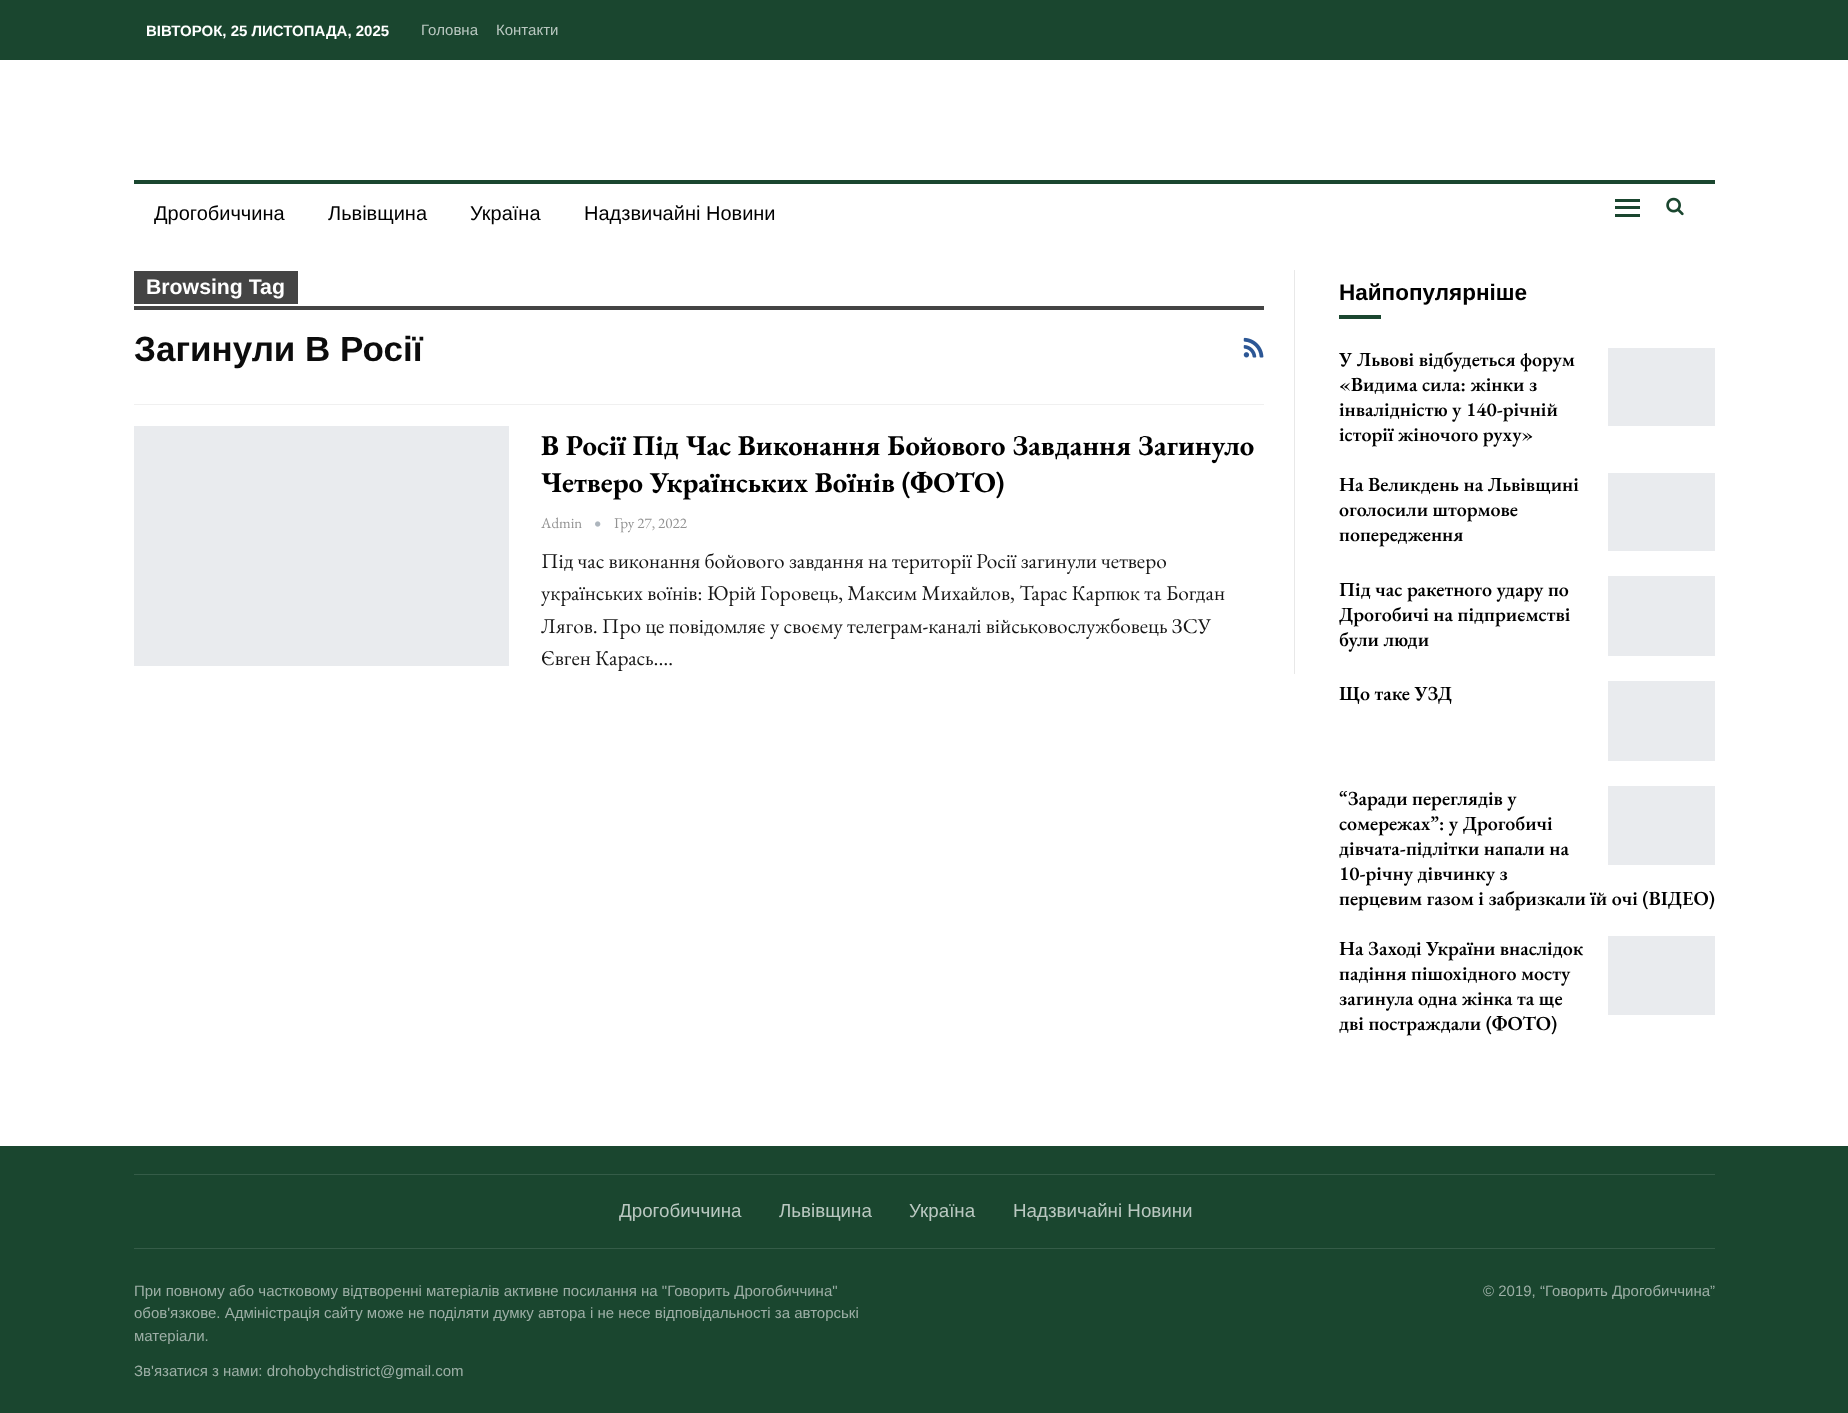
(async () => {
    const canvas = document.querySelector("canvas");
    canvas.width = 1848;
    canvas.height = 1413;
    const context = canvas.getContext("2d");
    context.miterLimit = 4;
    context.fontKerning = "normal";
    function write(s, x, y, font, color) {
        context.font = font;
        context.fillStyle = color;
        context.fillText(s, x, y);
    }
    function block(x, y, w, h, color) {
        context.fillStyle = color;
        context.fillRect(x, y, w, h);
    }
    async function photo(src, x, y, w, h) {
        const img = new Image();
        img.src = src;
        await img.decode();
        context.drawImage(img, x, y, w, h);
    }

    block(0, 0, 1848, 1413, "rgb(255, 255, 255)");
    block(0, 0, 1848, 60, "rgb(26, 70, 47)");
    write("ВІВТОРОК, 25 ЛИСТОПАДА, 2025", 146, 36, "bold 15px Liberation Sans", "rgb(255, 255, 255)");
    write("Головна", 421, 35, "15px Liberation Sans", "rgb(186, 200, 193)");
    write("Контакти", 496, 35, "15px Liberation Sans", "rgb(186, 200, 193)");
    block(134, 180, 1581, 4, "rgb(26, 70, 47)");
    write("Дрогобиччина", 154, 220, "20px Liberation Sans", "rgb(0, 0, 0)");
    write("Львівщина", 328, 220, "20px Liberation Sans", "rgb(0, 0, 0)");
    write("Україна", 470, 220, "20px Liberation Sans", "rgb(0, 0, 0)");
    write("Надзвичайні Новини", 584, 220, "20px Liberation Sans", "rgb(0, 0, 0)");
    block(1615, 206, 25, 3, "rgb(26, 70, 47)");
    block(1615, 199, 25, 3, "rgb(26, 70, 47)");
    block(1615, 214, 25, 3, "rgb(26, 70, 47)");
    await photo("media/1.png", 1666, 197, 18, 19);
    block(134, 404, 1130, 1, "rgb(240, 240, 240)");
    block(134, 271, 164, 33, "rgb(68, 68, 68)");
    write("Browsing Tag", 146, 294, "bold 21.25px Liberation Sans", "rgb(255, 255, 255)");
    block(134, 306, 1130, 4, "rgb(68, 68, 68)");
    write("Загинули В Росії", 134, 361, "bold 35px Liberation Sans", "rgb(12, 12, 12)");
    await photo("media/2.png", 1243, 337, 21, 21);
    block(1294, 270, 1, 404, "rgb(232, 232, 232)");
    block(134, 426, 375, 240, "rgb(233, 235, 238)");
    write("В Росії Під Час Виконання Бойового Завдання Загинуло", 541, 455, "bold 28.75px EB Garamond", "rgb(0, 0, 0)");
    write("Четверо Українських Воїнів (ФОТО)", 541, 492, "bold 28.75px EB Garamond", "rgb(0, 0, 0)");
    write("Admin", 541, 528, "15px EB Garamond", "rgb(146, 146, 146)");
    await photo("media/3.png", 595, 521, 6, 6);
    write("Гру 27, 2022", 614, 528, "15px EB Garamond", "rgb(146, 146, 146)");
    write("Під час виконання бойового завдання на території Росії загинули четверо", 541, 568, "21.25px EB Garamond", "rgb(22, 22, 22)");
    write("українських воїнів: Юрій Горовець, Максим Михайлов, Тарас Карпюк та Богдан", 541, 600, "21.25px EB Garamond", "rgb(22, 22, 22)");
    write("Лягов. Про це повідомляє у своєму телеграм-каналі військовослужбовець ЗСУ", 541, 633, "21.25px EB Garamond", "rgb(22, 22, 22)");
    write("Євген Карась.…", 541, 665, "21.25px EB Garamond", "rgb(22, 22, 22)");
    write("Найпопулярніше", 1339, 300, "bold 22.5px Liberation Sans", "rgb(0, 0, 0)");
    block(1339, 315, 42, 4, "rgb(26, 70, 47)");
    write("У Львові відбудеться форум", 1339, 366, "600 20px EB Garamond", "rgb(0, 0, 0)");
    write("«Видима сила: жінки з", 1339, 391, "600 20px EB Garamond", "rgb(0, 0, 0)");
    write("інвалідністю у 140-річній", 1339, 416, "600 20px EB Garamond", "rgb(0, 0, 0)");
    write("історії жіночого руху»", 1339, 441, "600 20px EB Garamond", "rgb(0, 0, 0)");
    block(1608, 348, 107, 78, "rgb(233, 235, 238)");
    write("На Великдень на Львівщині", 1339, 491, "600 20px EB Garamond", "rgb(0, 0, 0)");
    write("оголосили штормове", 1339, 516, "600 20px EB Garamond", "rgb(0, 0, 0)");
    write("попередження", 1339, 541, "600 20px EB Garamond", "rgb(0, 0, 0)");
    block(1608, 473, 107, 78, "rgb(233, 235, 238)");
    write("Під час ракетного удару по", 1339, 596, "600 20px EB Garamond", "rgb(0, 0, 0)");
    write("Дрогобичі на підприємстві", 1339, 621, "600 20px EB Garamond", "rgb(0, 0, 0)");
    write("були люди", 1339, 646, "600 20px EB Garamond", "rgb(0, 0, 0)");
    block(1608, 576, 107, 80, "rgb(233, 235, 238)");
    write("Що таке УЗД", 1339, 700, "600 20px EB Garamond", "rgb(0, 0, 0)");
    block(1608, 681, 107, 80, "rgb(233, 235, 238)");
    block(1608, 786, 107, 79, "rgb(233, 235, 238)");
    write("“Заради переглядів у", 1339, 805, "600 20px EB Garamond", "rgb(0, 0, 0)");
    write("сомережах”: у Дрогобичі", 1339, 830, "600 20px EB Garamond", "rgb(0, 0, 0)");
    write("дівчата-підлітки напали на", 1339, 855, "600 20px EB Garamond", "rgb(0, 0, 0)");
    write("10-річну дівчинку з", 1339, 880, "600 20px EB Garamond", "rgb(0, 0, 0)");
    write("перцевим газом і забризкали їй очі (ВІДЕО)", 1339, 905, "600 20px EB Garamond", "rgb(0, 0, 0)");
    write("На Заході України внаслідок", 1339, 955, "600 20px EB Garamond", "rgb(0, 0, 0)");
    write("падіння пішохідного мосту", 1339, 980, "600 20px EB Garamond", "rgb(0, 0, 0)");
    write("загинула одна жінка та ще", 1339, 1005, "600 20px EB Garamond", "rgb(0, 0, 0)");
    write("дві постраждали (ФОТО)", 1339, 1030, "600 20px EB Garamond", "rgb(0, 0, 0)");
    block(1608, 936, 107, 79, "rgb(233, 235, 238)");
    block(0, 1146, 1848, 267, "rgb(26, 70, 47)");
    block(134, 1174, 1581, 1, "rgb(53, 92, 72)");
    block(134, 1248, 1581, 1, "rgb(53, 92, 72)");
    write("Дрогобиччина", 619, 1217, "18.75px Liberation Sans", "rgb(186, 200, 193)");
    write("Львівщина", 779, 1217, "18.75px Liberation Sans", "rgb(186, 200, 193)");
    write("Україна", 909, 1217, "18.75px Liberation Sans", "rgb(186, 200, 193)");
    write("Надзвичайні Новини", 1013, 1217, "18.75px Liberation Sans", "rgb(186, 200, 193)");
    write("При повному або частковому відтворенні матеріалів активне посилання на \"Говорить Дрогобиччина\"", 134, 1296, "15px Liberation Sans", "rgb(157, 175, 166)");
    write("обов'язкове. Адміністрація сайту може не поділяти думку автора і не несе відповідальності за авторські", 134, 1318, "15px Liberation Sans", "rgb(157, 175, 166)");
    write("матеріали.", 134, 1341, "15px Liberation Sans", "rgb(157, 175, 166)");
    write("Зв'язатися з нами: drohobychdistrict@gmail.com", 134, 1376, "15px Liberation Sans", "rgb(157, 175, 166)");
    write("© 2019, “Говорить Дрогобиччина”", 1483, 1296, "15px Liberation Sans", "rgb(157, 175, 166)");
})();
